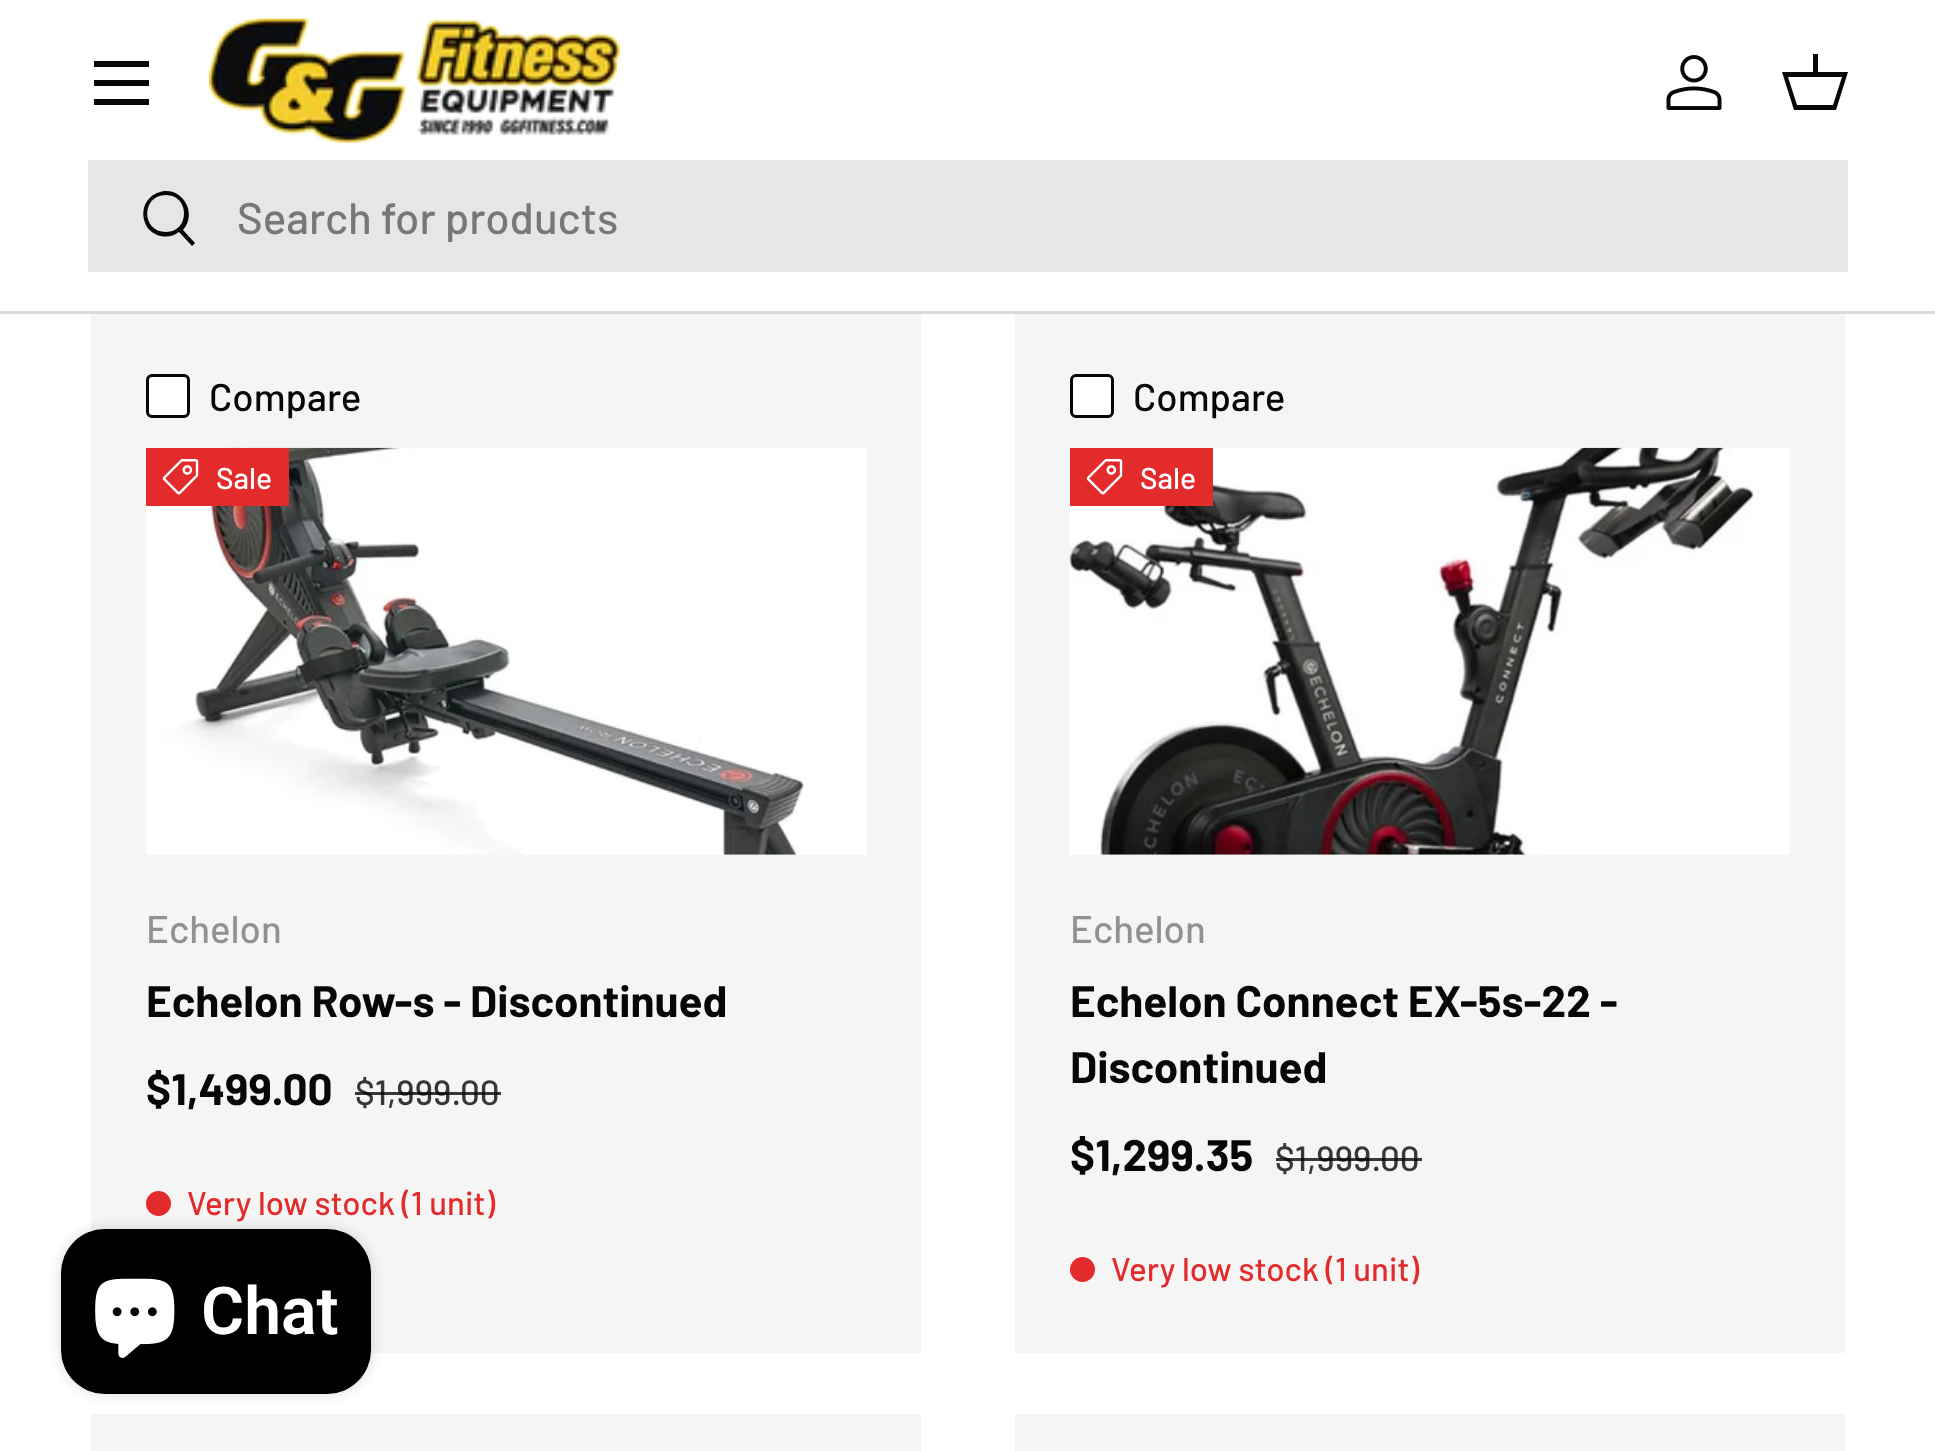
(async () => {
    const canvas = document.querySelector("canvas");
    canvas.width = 1935;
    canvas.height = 1451;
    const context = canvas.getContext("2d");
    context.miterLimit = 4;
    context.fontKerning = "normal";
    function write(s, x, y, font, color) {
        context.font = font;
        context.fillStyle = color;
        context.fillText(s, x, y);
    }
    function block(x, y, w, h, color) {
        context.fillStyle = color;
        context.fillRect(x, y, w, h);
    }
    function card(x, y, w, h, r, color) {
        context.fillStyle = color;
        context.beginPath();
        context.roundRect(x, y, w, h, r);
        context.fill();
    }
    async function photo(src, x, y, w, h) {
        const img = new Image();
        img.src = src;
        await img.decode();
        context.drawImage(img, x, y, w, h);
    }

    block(0, 0, 1935, 1451, "rgb(255, 255, 255)");
    block(0, 311, 1935, 3, "rgb(218, 218, 218)");
    block(94, 61, 55, 6, "rgb(7, 7, 7)");
    block(94, 99, 55, 6, "rgb(7, 7, 7)");
    block(94, 80, 55, 6, "rgb(7, 7, 7)");
    await photo("media/1.png", 209, 18, 413, 125);
    await photo("media/2.png", 1666, 55, 56, 55);
    context.beginPath();
    context.moveTo(1813, 72);
    context.lineTo(1813, 54);
    context.lineTo(1818, 54);
    context.lineTo(1818, 72);
    context.lineTo(1848, 72);
    context.lineTo(1836, 110);
    context.lineTo(1794, 110);
    context.lineTo(1782, 72);
    context.closePath();
    context.moveTo(1788, 77);
    context.lineTo(1797, 105);
    context.lineTo(1833, 105);
    context.lineTo(1842, 77);
    context.closePath();
    context.fill();
    block(88, 160, 1760, 112, "rgb(230, 230, 230)");
    context.fillStyle = "rgb(7, 7, 7)";
    context.beginPath();
    context.moveTo(183, 230);
    context.lineTo(195, 243);
    context.lineTo(192, 246);
    context.lineTo(179, 232);
    context.bezierCurveTo(169, 240, 154, 237, 147, 227);
    context.bezierCurveTo(143, 220, 142, 212, 145, 205);
    context.bezierCurveTo(147, 200, 152, 195, 157, 193);
    context.bezierCurveTo(180, 183, 199, 212, 183, 230);
    context.closePath();
    context.moveTo(166, 232);
    context.bezierCurveTo(190, 232, 190, 195, 166, 195);
    context.bezierCurveTo(141, 195, 141, 232, 166, 232);
    context.closePath();
    context.fill();
    context.save();
    context.beginPath();
    context.rect(237, 190, 1463, 52);
    context.clip();
    write("Search for products", 237, 234, "500 44px Barlow", "rgb(119, 119, 119)");
    context.restore();
    block(91, 314, 830, 1039, "rgb(245, 245, 245)");
    context.fillStyle = "rgb(255, 255, 255)";
    context.beginPath();
    context.roundRect(147.5, 375.5, 41, 41, 4.5);
    context.fill();
    context.strokeStyle = "rgb(7, 7, 7)";
    context.lineWidth = 3;
    context.stroke();
    write("Compare", 209, 411, "500 38.5px Barlow", "rgb(7, 7, 7)");
    await photo("media/3.png", 146, 447, 720, 408);
    block(146, 448, 143, 58, "rgb(227, 43, 43)");
    await photo("media/4.png", 162, 459, 37, 36);
    write("Sale", 216, 489, "500 30px Barlow", "rgb(255, 255, 255)");
    write("Echelon", 146, 943, "500 38.5px Barlow", "rgb(145, 145, 145)");
    write("Echelon Row-s - Discontinued", 146, 1017, "bold 44px Barlow", "rgb(7, 7, 7)");
    write("$1,499.00", 146, 1105, "bold 44px Barlow", "rgb(7, 7, 7)");
    write("$1,999.00", 355, 1105, "500 35px Barlow", "rgb(55, 55, 55)");
    block(355, 1092, 146, 3, "rgba(7, 7, 7, 0.8)");
    context.fillStyle = "rgb(227, 43, 43)";
    context.beginPath();
    context.arc(158.5, 1203.5, 12.5, 0, Math.PI * 2);
    context.fill();
    write("Very low stock (1 unit)", 187, 1215, "500 33px Barlow", "rgb(227, 43, 43)");
    block(1015, 314, 830, 1039, "rgb(245, 245, 245)");
    context.fillStyle = "rgb(255, 255, 255)";
    context.beginPath();
    context.roundRect(1071.5, 375.5, 41, 41, 4.5);
    context.fill();
    context.stroke();
    write("Compare", 1133, 411, "500 38.5px Barlow", "rgb(7, 7, 7)");
    await photo("media/5.png", 1069, 447, 721, 408);
    block(1070, 448, 143, 58, "rgb(227, 43, 43)");
    await photo("media/4.png", 1086, 459, 37, 36);
    write("Sale", 1140, 489, "500 30px Barlow", "rgb(255, 255, 255)");
    write("Echelon", 1070, 943, "500 38.5px Barlow", "rgb(145, 145, 145)");
    write("Echelon Connect EX-5s-22 -", 1070, 1017, "bold 44px Barlow", "rgb(7, 7, 7)");
    write("Discontinued", 1070, 1083, "bold 44px Barlow", "rgb(7, 7, 7)");
    write("$1,299.35", 1070, 1171, "bold 44px Barlow", "rgb(7, 7, 7)");
    write("$1,999.00", 1275, 1171, "500 35px Barlow", "rgb(55, 55, 55)");
    block(1276, 1158, 146, 3, "rgba(7, 7, 7, 0.8)");
    context.fillStyle = "rgb(227, 43, 43)";
    context.beginPath();
    context.arc(1082.5, 1269.5, 12.5, 0, Math.PI * 2);
    context.fill();
    write("Very low stock (1 unit)", 1111, 1281, "500 33px Barlow", "rgb(227, 43, 43)");
    block(91, 1414, 830, 37, "rgb(245, 245, 245)");
    block(1015, 1414, 830, 37, "rgb(245, 245, 245)");
    context.fillStyle = "rgba(0, 0, 0, 0.15)";
    context.filter = "blur(7px)";
    context.beginPath();
    context.roundRect(61, 1229, 310, 165, 44);
    context.fill();
    context.filter = "none";
    card(61, 1229, 310, 165, 44, "rgb(0, 0, 0)");
    await photo("media/6.png", 95, 1278, 80, 80);
    write("Chat", 201, 1334, "600 66px Roboto", "rgb(255, 255, 255)");
})();
